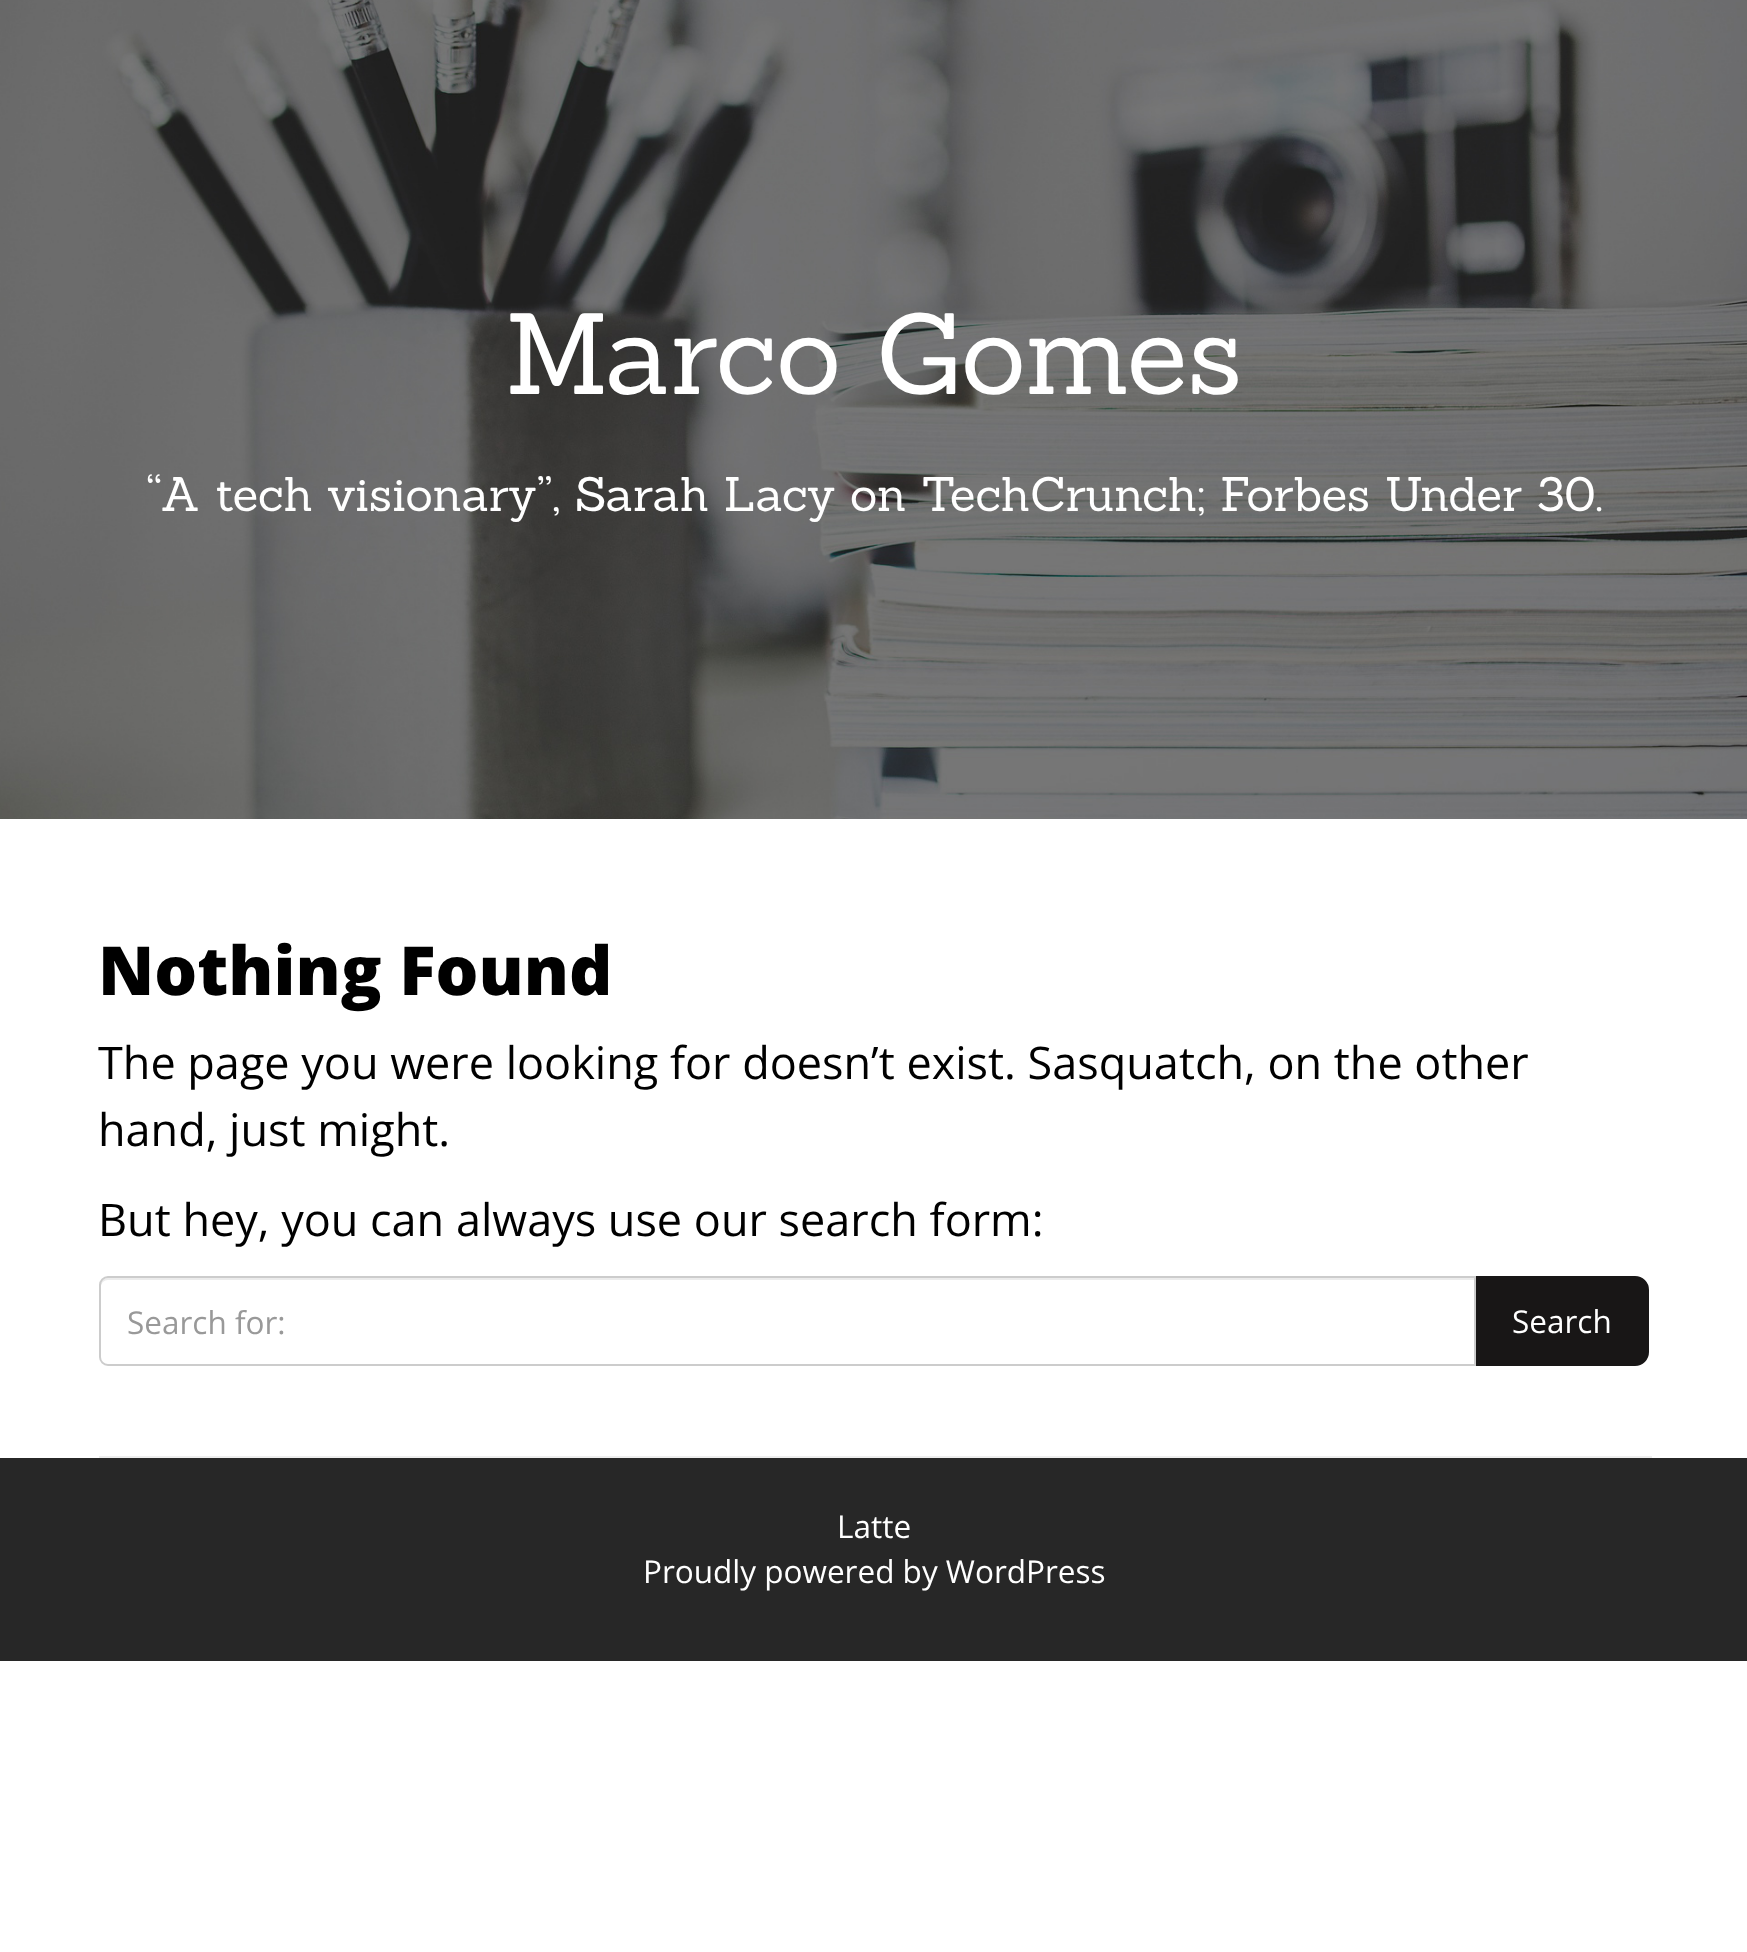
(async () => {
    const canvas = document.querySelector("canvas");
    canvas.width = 1747;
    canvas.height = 1952;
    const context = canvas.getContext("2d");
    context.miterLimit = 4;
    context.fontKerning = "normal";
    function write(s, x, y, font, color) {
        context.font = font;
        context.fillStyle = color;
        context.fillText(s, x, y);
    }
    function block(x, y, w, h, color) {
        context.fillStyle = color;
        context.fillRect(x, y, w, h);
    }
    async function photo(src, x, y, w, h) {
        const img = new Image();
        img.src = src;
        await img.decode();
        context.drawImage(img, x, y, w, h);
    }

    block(0, 0, 1747, 1952, "rgb(255, 255, 255)");
    await photo("media/1.png", 0, 0, 1747, 819);
    write("Marco Gomes", 505, 394, "112.5px Sanchez", "rgb(255, 255, 255)");
    write("“A tech visionary”, Sarah Lacy on TechCrunch; Forbes Under 30.", 146, 511, "47.25px Sanchez", "rgb(255, 255, 255)");
    block(99, 1456, 1553, 2, "rgb(238, 238, 238)");
    write("Nothing Found", 98, 995, "800 67.5px Open Sans", "rgb(0, 0, 0)");
    write("The page you were looking for doesn’t exist. Sasquatch, on the other", 98, 1079, "45px Open Sans", "rgb(0, 0, 0)");
    write("hand, just might.", 98, 1146, "45px Open Sans", "rgb(0, 0, 0)");
    write("But hey, you can always use our search form:", 98, 1236, "45px Open Sans", "rgb(0, 0, 0)");
    context.fillStyle = "rgb(24, 22, 22)";
    context.beginPath();
    context.roundRect(1475, 1277, 173, 88, [0, 13, 13, 0]);
    context.fill();
    context.strokeStyle = "rgb(24, 22, 22)";
    context.lineWidth = 2;
    context.stroke();
    context.fillStyle = "rgb(255, 255, 255)";
    context.beginPath();
    context.roundRect(99, 1276, 1377, 90, [9, 0, 0, 9]);
    context.fill();
    context.fillStyle = "rgb(236, 236, 236)";
    context.beginPath();
    context.moveTo(108, 1280);
    context.lineTo(1474, 1280);
    context.lineTo(1474, 1278);
    context.lineTo(108, 1278);
    context.bezierCurveTo(104, 1278, 101, 1281, 101, 1285);
    context.lineTo(101, 1287);
    context.bezierCurveTo(101, 1283, 104, 1280, 108, 1280);
    context.closePath();
    context.fill();
    context.beginPath();
    context.roundRect(100, 1277, 1375, 88, [8, 0, 0, 8]);
    context.strokeStyle = "rgb(204, 204, 204)";
    context.stroke();
    write("Search for:", 127, 1334, "31.5px Open Sans", "rgb(153, 153, 153)");
    write("Search", 1512, 1333, "31.5px Open Sans", "rgb(255, 255, 255)");
    block(0, 1458, 1747, 203, "rgb(39, 39, 39)");
    write("Latte", 837, 1538, "31.5px Open Sans", "rgb(255, 255, 255)");
    write("Proudly powered by WordPress", 643, 1583, "31.5px Open Sans", "rgb(255, 255, 255)");
})();
